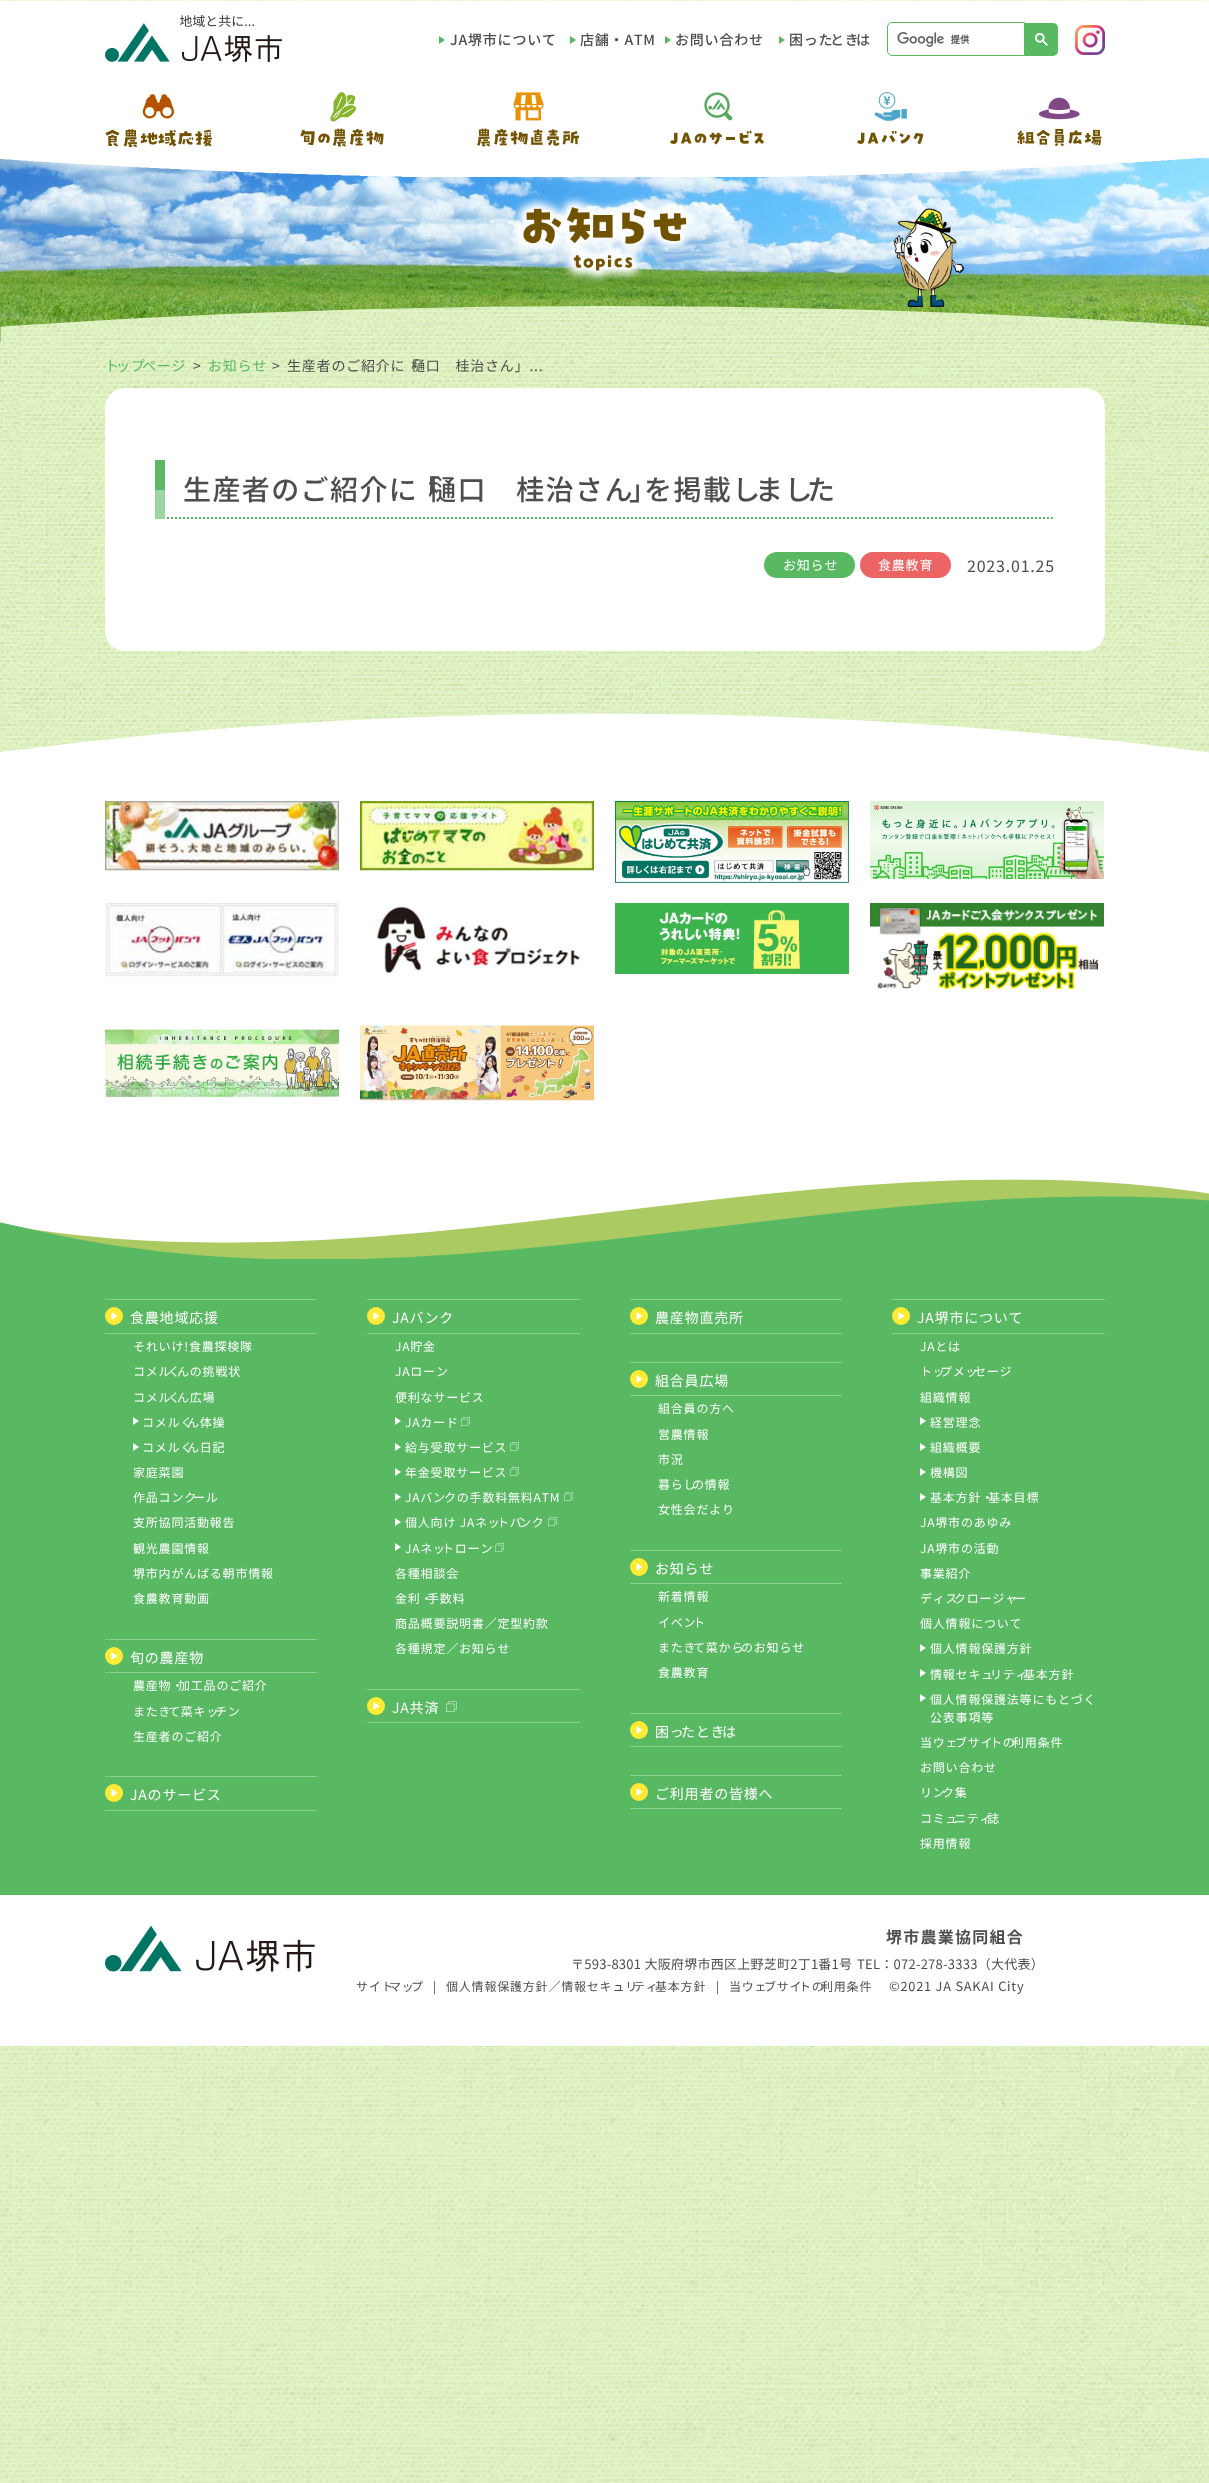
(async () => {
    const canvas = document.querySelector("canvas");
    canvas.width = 1209;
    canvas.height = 2483;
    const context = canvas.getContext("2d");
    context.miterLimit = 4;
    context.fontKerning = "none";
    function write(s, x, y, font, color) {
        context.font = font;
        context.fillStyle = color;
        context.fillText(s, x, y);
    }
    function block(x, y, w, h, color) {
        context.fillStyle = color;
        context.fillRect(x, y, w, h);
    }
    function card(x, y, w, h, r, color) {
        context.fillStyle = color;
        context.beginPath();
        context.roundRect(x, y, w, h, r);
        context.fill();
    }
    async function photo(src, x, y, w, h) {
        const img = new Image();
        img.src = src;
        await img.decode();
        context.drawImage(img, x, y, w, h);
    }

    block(0, 0, 1209, 2483, "rgb(255, 255, 255)");
    await photo("media/1.png", 0, 0, 1209, 2483);
    await photo("media/19.png", 0, 157, 1209, 185);
    await photo("media/2.png", 0, 0, 1209, 177);
    await photo("media/3.png", 105, 15, 177, 47);
    context.fillStyle = "rgb(88, 185, 98)";
    context.beginPath();
    context.moveTo(439, 44);
    context.lineTo(439, 36);
    context.lineTo(445, 40);
    context.closePath();
    context.fill();
    context.letterSpacing = "0.8px";
    write("JA堺市について", 450, 45, "500 14px Noto Sans JP", "rgb(77, 77, 77)");
    context.fillStyle = "rgb(88, 185, 98)";
    context.beginPath();
    context.moveTo(570, 44);
    context.lineTo(570, 36);
    context.lineTo(576, 40);
    context.closePath();
    context.fill();
    write("店舗・ATM", 580, 45, "500 14px Noto Sans JP", "rgb(77, 77, 77)");
    context.fillStyle = "rgb(88, 185, 98)";
    context.beginPath();
    context.moveTo(665, 44);
    context.lineTo(665, 36);
    context.lineTo(671, 40);
    context.closePath();
    context.fill();
    write("お問い合わせ", 675, 45, "500 14px Noto Sans JP", "rgb(77, 77, 77)");
    context.fillStyle = "rgb(88, 185, 98)";
    context.beginPath();
    context.moveTo(779, 44);
    context.lineTo(779, 36);
    context.lineTo(785, 40);
    context.closePath();
    context.fill();
    write("困った", 789, 45, "500 14px Noto Sans JP", "rgb(77, 77, 77)");
    write("とき", 830, 45, "500 14px Noto Sans JP", "rgb(77, 77, 77)");
    write("は", 856, 45, "500 14px Noto Sans JP", "rgb(77, 77, 77)");
    context.beginPath();
    context.roundRect(887.5, 22.5, 137, 33, [4.5, 0, 0, 4.5]);
    context.strokeStyle = "rgb(88, 185, 98)";
    context.stroke();
    await photo("media/4.png", 897, 32, 73, 15);
    context.fillStyle = "rgb(88, 185, 98)";
    context.beginPath();
    context.roundRect(1025, 23, 33, 33, [0, 5, 5, 0]);
    context.fill();
    await photo("media/5.png", 1035, 33, 13, 13);
    await photo("media/6.png", 1075, 25, 30, 30);
    await photo("media/7.png", 142, 94, 32, 25);
    await photo("media/8.png", 105, 129, 107, 18);
    await photo("media/9.png", 330, 92, 26, 30);
    await photo("media/10.png", 300, 128, 84, 19);
    await photo("media/11.png", 513, 92, 31, 29);
    await photo("media/12.png", 477, 128, 103, 19);
    await photo("media/13.png", 704, 92, 29, 29);
    await photo("media/14.png", 670, 130, 94, 15);
    await photo("media/15.png", 874, 92, 33, 29);
    await photo("media/16.png", 857, 130, 67, 15);
    await photo("media/17.png", 1038, 97, 42, 23);
    await photo("media/18.png", 1017, 128, 85, 19);
    await photo("media/20.png", 512, 194, 185, 91);
    await photo("media/21.png", 893, 208, 72, 99);
    await photo("media/22.png", 0, 306, 1209, 447);
    write("ト", 105, 371, "14px Noto Sans JP", "rgb(88, 185, 98)");
    write("ップ", 116, 371, "14px Noto Sans JP", "rgb(88, 185, 98)");
    write("ページ", 142, 371, "14px Noto Sans JP", "rgb(88, 185, 98)");
    write(">", 193, 371, "14px Noto Sans JP", "rgb(77, 77, 77)");
    write("お知らせ", 208, 371, "14px Noto Sans JP", "rgb(88, 185, 98)");
    write(">", 272, 371, "14px Noto Sans JP", "rgb(77, 77, 77)");
    write("生産者のご紹介に「", 287, 371, "14px Noto Sans JP", "rgb(77, 77, 77)");
    write("樋口　桂治さん」...", 411, 371, "14px Noto Sans JP", "rgb(77, 77, 77)");
    card(105, 388, 1000, 263, 20, "rgb(255, 255, 255)");
    context.beginPath();
    context.moveTo(155, 518);
    context.lineTo(1055, 518);
    context.lineWidth = 2;
    context.setLineDash([2, 2]);
    context.stroke();
    block(155, 460, 10, 30, "rgb(92, 184, 102)");
    block(155, 490, 10, 29, "rgb(156, 212, 163)");
    context.letterSpacing = "1.4px";
    write("生産者のご紹介に", 183, 500, "500 28px Noto Sans JP", "rgb(77, 77, 77)");
    write("「", 412, 500, "500 28px Noto Sans JP", "rgb(77, 77, 77)");
    write("樋口　桂治さん", 428, 500, "500 28px Noto Sans JP", "rgb(77, 77, 77)");
    write("」", 629, 500, "500 28px Noto Sans JP", "rgb(77, 77, 77)");
    write("を掲載し", 644, 500, "500 28px Noto Sans JP", "rgb(77, 77, 77)");
    write("まし", 755, 500, "500 28px Noto Sans JP", "rgb(77, 77, 77)");
    write("た", 807, 500, "500 28px Noto Sans JP", "rgb(77, 77, 77)");
    card(764, 552, 91, 26, 13, "rgb(88, 185, 98)");
    context.letterSpacing = "0.8px";
    write("お知らせ", 783, 570, "13px Noto Sans JP", "rgb(255, 255, 255)");
    card(860, 552, 91, 26, 13, "rgb(236, 100, 100)");
    write("食農教育", 878, 570, "13px Noto Sans JP", "rgb(255, 255, 255)");
    write("2023.01.25", 967, 572, "16px Noto Sans JP", "rgb(77, 77, 77)");
    block(0, 801, 1209, 442, "rgb(255, 255, 255)");
    await photo("media/23.png", 0, 713, 1209, 88);
    await photo("media/24.png", 105, 801, 234, 70);
    await photo("media/25.png", 360, 801, 234, 70);
    await photo("media/26.png", 615, 801, 234, 82);
    await photo("media/27.png", 870, 801, 234, 78);
    await photo("media/28.png", 105, 903, 234, 74);
    await photo("media/29.png", 376, 905, 207, 69);
    await photo("media/30.png", 615, 903, 234, 71);
    await photo("media/31.png", 870, 903, 234, 89);
    await photo("media/32.png", 105, 1029, 234, 70);
    await photo("media/33.png", 360, 1024, 234, 78);
    block(0, 1259, 1209, 636, "rgb(88, 185, 98)");
    await photo("media/34.png", 0, 1179, 1209, 80);
    block(105, 1299, 212, 1, "rgb(138, 206, 145)");
    block(105, 1333, 212, 1, "rgb(138, 206, 145)");
    context.fillStyle = "rgb(255, 234, 53)";
    context.beginPath();
    context.arc(114, 1316, 9, 0, Math.PI * 2);
    context.fill();
    context.fillStyle = "rgb(255, 255, 255)";
    context.beginPath();
    context.moveTo(111.5, 1320);
    context.lineTo(111.5, 1312);
    context.lineTo(117.5, 1316);
    context.closePath();
    context.fill();
    write("食農地域応援", 130, 1323, "14px Noto Sans JP", "rgb(255, 255, 255)");
    write("それいけ!食農探検隊", 133, 1351, "12px Noto Sans JP", "rgb(255, 255, 255)");
    write("コメル", 133, 1376, "12px Noto Sans JP", "rgb(255, 255, 255)");
    write("く", 168, 1376, "12px Noto Sans JP", "rgb(255, 255, 255)");
    write("んの挑戦状", 177, 1376, "12px Noto Sans JP", "rgb(255, 255, 255)");
    write("コメル", 133, 1402, "12px Noto Sans JP", "rgb(255, 255, 255)");
    write("く", 168, 1402, "12px Noto Sans JP", "rgb(255, 255, 255)");
    write("ん広場", 177, 1402, "12px Noto Sans JP", "rgb(255, 255, 255)");
    context.beginPath();
    context.moveTo(133, 1425);
    context.lineTo(133, 1417);
    context.lineTo(139, 1421);
    context.closePath();
    context.moveTo(133, 1451);
    context.lineTo(133, 1443);
    context.lineTo(139, 1447);
    context.closePath();
    context.fill();
    write("コメルく", 142, 1427, "12px Noto Sans JP", "rgb(255, 255, 255)");
    write("ん体操", 187, 1427, "12px Noto Sans JP", "rgb(255, 255, 255)");
    write("コメルく", 142, 1452, "12px Noto Sans JP", "rgb(255, 255, 255)");
    write("ん日記", 187, 1452, "12px Noto Sans JP", "rgb(255, 255, 255)");
    write("家庭菜園", 133, 1477, "12px Noto Sans JP", "rgb(255, 255, 255)");
    write("作品コンク", 133, 1502, "12px Noto Sans JP", "rgb(255, 255, 255)");
    write("ール", 193, 1502, "12px Noto Sans JP", "rgb(255, 255, 255)");
    write("支所協同活動報告", 133, 1527, "12px Noto Sans JP", "rgb(255, 255, 255)");
    write("観光農園情報", 133, 1553, "12px Noto Sans JP", "rgb(255, 255, 255)");
    write("堺市内がんばる朝市情報", 133, 1578, "12px Noto Sans JP", "rgb(255, 255, 255)");
    write("食農教育動画", 133, 1603, "12px Noto Sans JP", "rgb(255, 255, 255)");
    block(105, 1639, 212, 1, "rgb(138, 206, 145)");
    block(105, 1672, 212, 1, "rgb(138, 206, 145)");
    context.fillStyle = "rgb(255, 234, 53)";
    context.beginPath();
    context.arc(114, 1656, 9, 0, Math.PI * 2);
    context.fill();
    context.fillStyle = "rgb(255, 255, 255)";
    context.beginPath();
    context.moveTo(111.5, 1660);
    context.lineTo(111.5, 1652);
    context.lineTo(117.5, 1656);
    context.closePath();
    context.fill();
    write("旬の農産物", 130, 1663, "14px Noto Sans JP", "rgb(255, 255, 255)");
    write("農産物・", 133, 1690, "12px Noto Sans JP", "rgb(255, 255, 255)");
    write("加工品のご紹介", 178, 1690, "12px Noto Sans JP", "rgb(255, 255, 255)");
    write("またき", 133, 1716, "12px Noto Sans JP", "rgb(255, 255, 255)");
    write("て菜キッ", 168, 1716, "12px Noto Sans JP", "rgb(255, 255, 255)");
    write("チン", 215, 1716, "12px Noto Sans JP", "rgb(255, 255, 255)");
    write("生産者のご紹介", 133, 1741, "12px Noto Sans JP", "rgb(255, 255, 255)");
    block(105, 1776, 212, 1, "rgb(138, 206, 145)");
    block(105, 1810, 212, 1, "rgb(138, 206, 145)");
    context.fillStyle = "rgb(255, 234, 53)";
    context.beginPath();
    context.arc(114, 1793, 9, 0, Math.PI * 2);
    context.fill();
    context.fillStyle = "rgb(255, 255, 255)";
    context.beginPath();
    context.moveTo(111.5, 1797);
    context.lineTo(111.5, 1789);
    context.lineTo(117.5, 1793);
    context.closePath();
    context.fill();
    write("JAのサービス", 130, 1800, "14px Noto Sans JP", "rgb(255, 255, 255)");
    block(367, 1299, 213, 1, "rgb(138, 206, 145)");
    block(367, 1333, 213, 1, "rgb(138, 206, 145)");
    context.fillStyle = "rgb(255, 234, 53)";
    context.beginPath();
    context.arc(376, 1316, 9, 0, Math.PI * 2);
    context.fill();
    context.fillStyle = "rgb(255, 255, 255)";
    context.beginPath();
    context.moveTo(373.5, 1320);
    context.lineTo(373.5, 1312);
    context.lineTo(379.5, 1316);
    context.closePath();
    context.fill();
    write("JAバンク", 392, 1323, "14px Noto Sans JP", "rgb(255, 255, 255)");
    write("JA貯金", 395, 1351, "12px Noto Sans JP", "rgb(255, 255, 255)");
    write("JAローン", 395, 1376, "12px Noto Sans JP", "rgb(255, 255, 255)");
    write("便利なサービス", 395, 1402, "12px Noto Sans JP", "rgb(255, 255, 255)");
    context.beginPath();
    context.moveTo(395, 1425);
    context.lineTo(395, 1417);
    context.lineTo(401, 1421);
    context.closePath();
    context.moveTo(395, 1451);
    context.lineTo(395, 1443);
    context.lineTo(401, 1447);
    context.closePath();
    context.moveTo(395, 1476);
    context.lineTo(395, 1468);
    context.lineTo(401, 1472);
    context.closePath();
    context.fill();
    write("JAカード", 405, 1427, "12px Noto Sans JP", "rgb(255, 255, 255)");
    await photo("media/35.png", 461, 1417, 9, 9);
    write("給与受取サービス", 405, 1452, "12px Noto Sans JP", "rgb(255, 255, 255)");
    await photo("media/35.png", 510, 1442, 9, 9);
    write("年金受取サービス", 405, 1477, "12px Noto Sans JP", "rgb(255, 255, 255)");
    await photo("media/35.png", 510, 1467, 9, 9);
    context.beginPath();
    context.moveTo(395, 1501);
    context.lineTo(395, 1493);
    context.lineTo(401, 1497);
    context.closePath();
    context.moveTo(395, 1526);
    context.lineTo(395, 1518);
    context.lineTo(401, 1522);
    context.closePath();
    context.moveTo(395, 1551);
    context.lineTo(395, 1543);
    context.lineTo(401, 1547);
    context.closePath();
    context.fill();
    write("JAバン", 405, 1502, "12px Noto Sans JP", "rgb(255, 255, 255)");
    write("クの手数料無料ATM", 444, 1502, "12px Noto Sans JP", "rgb(255, 255, 255)");
    await photo("media/35.png", 564, 1492, 9, 9);
    write("個人向け JAネッ", 405, 1527, "12px Noto Sans JP", "rgb(255, 255, 255)");
    write("トバ", 497, 1527, "12px Noto Sans JP", "rgb(255, 255, 255)");
    write("ンク", 519, 1527, "12px Noto Sans JP", "rgb(255, 255, 255)");
    await photo("media/35.png", 548, 1517, 9, 9);
    write("JAネッ", 405, 1553, "12px Noto Sans JP", "rgb(255, 255, 255)");
    write("トローン", 442, 1553, "12px Noto Sans JP", "rgb(255, 255, 255)");
    await photo("media/35.png", 495, 1543, 9, 9);
    write("各種相談会", 395, 1578, "12px Noto Sans JP", "rgb(255, 255, 255)");
    write("金利・", 395, 1603, "12px Noto Sans JP", "rgb(255, 255, 255)");
    write("手数料", 427, 1603, "12px Noto Sans JP", "rgb(255, 255, 255)");
    write("商品概要説明書／定型約款", 395, 1628, "12px Noto Sans JP", "rgb(255, 255, 255)");
    write("各種規定／お知らせ", 395, 1653, "12px Noto Sans JP", "rgb(255, 255, 255)");
    block(367, 1689, 213, 1, "rgb(138, 206, 145)");
    block(367, 1722, 213, 1, "rgb(138, 206, 145)");
    context.fillStyle = "rgb(255, 234, 53)";
    context.beginPath();
    context.arc(376, 1706, 9, 0, Math.PI * 2);
    context.fill();
    context.fillStyle = "rgb(255, 255, 255)";
    context.beginPath();
    context.moveTo(373.5, 1710);
    context.lineTo(373.5, 1702);
    context.lineTo(379.5, 1706);
    context.closePath();
    context.fill();
    write("JA共済", 392, 1713, "14px Noto Sans JP", "rgb(255, 255, 255)");
    await photo("media/36.png", 446, 1701, 11, 11);
    block(630, 1299, 212, 1, "rgb(138, 206, 145)");
    block(630, 1333, 212, 1, "rgb(138, 206, 145)");
    context.fillStyle = "rgb(255, 234, 53)";
    context.beginPath();
    context.arc(639, 1316, 9, 0, Math.PI * 2);
    context.fill();
    context.fillStyle = "rgb(255, 255, 255)";
    context.beginPath();
    context.moveTo(636.5, 1320);
    context.lineTo(636.5, 1312);
    context.lineTo(642.5, 1316);
    context.closePath();
    context.fill();
    write("農産物直売所", 655, 1323, "14px Noto Sans JP", "rgb(255, 255, 255)");
    block(630, 1362, 212, 1, "rgb(138, 206, 145)");
    block(630, 1395, 212, 1, "rgb(138, 206, 145)");
    context.fillStyle = "rgb(255, 234, 53)";
    context.beginPath();
    context.arc(639, 1379, 9, 0, Math.PI * 2);
    context.fill();
    context.fillStyle = "rgb(255, 255, 255)";
    context.beginPath();
    context.moveTo(636.5, 1383);
    context.lineTo(636.5, 1375);
    context.lineTo(642.5, 1379);
    context.closePath();
    context.fill();
    write("組合員広場", 655, 1386, "14px Noto Sans JP", "rgb(255, 255, 255)");
    write("組合員の方へ", 658, 1413, "12px Noto Sans JP", "rgb(255, 255, 255)");
    write("営農情報", 658, 1439, "12px Noto Sans JP", "rgb(255, 255, 255)");
    write("市況", 658, 1464, "12px Noto Sans JP", "rgb(255, 255, 255)");
    write("暮らし", 658, 1489, "12px Noto Sans JP", "rgb(255, 255, 255)");
    write("の情報", 692, 1489, "12px Noto Sans JP", "rgb(255, 255, 255)");
    write("女性会だより", 658, 1514, "12px Noto Sans JP", "rgb(255, 255, 255)");
    block(630, 1550, 212, 1, "rgb(138, 206, 145)");
    block(630, 1583, 212, 1, "rgb(138, 206, 145)");
    context.fillStyle = "rgb(255, 234, 53)";
    context.beginPath();
    context.arc(639, 1567, 9, 0, Math.PI * 2);
    context.fill();
    context.fillStyle = "rgb(255, 255, 255)";
    context.beginPath();
    context.moveTo(636.5, 1571);
    context.lineTo(636.5, 1563);
    context.lineTo(642.5, 1567);
    context.closePath();
    context.fill();
    write("お知らせ", 655, 1574, "14px Noto Sans JP", "rgb(255, 255, 255)");
    write("新着情報", 658, 1601, "12px Noto Sans JP", "rgb(255, 255, 255)");
    write("イベン", 658, 1627, "12px Noto Sans JP", "rgb(255, 255, 255)");
    write("ト", 693, 1627, "12px Noto Sans JP", "rgb(255, 255, 255)");
    write("またき", 658, 1652, "12px Noto Sans JP", "rgb(255, 255, 255)");
    write("て菜から", 693, 1652, "12px Noto Sans JP", "rgb(255, 255, 255)");
    write("のお知らせ", 741, 1652, "12px Noto Sans JP", "rgb(255, 255, 255)");
    write("食農教育", 658, 1677, "12px Noto Sans JP", "rgb(255, 255, 255)");
    block(630, 1713, 212, 1, "rgb(138, 206, 145)");
    block(630, 1746, 212, 1, "rgb(138, 206, 145)");
    context.fillStyle = "rgb(255, 234, 53)";
    context.beginPath();
    context.arc(639, 1730, 9, 0, Math.PI * 2);
    context.fill();
    context.fillStyle = "rgb(255, 255, 255)";
    context.beginPath();
    context.moveTo(636.5, 1734);
    context.lineTo(636.5, 1726);
    context.lineTo(642.5, 1730);
    context.closePath();
    context.fill();
    write("困っ", 655, 1737, "14px Noto Sans JP", "rgb(255, 255, 255)");
    write("たとき", 681, 1737, "14px Noto Sans JP", "rgb(255, 255, 255)");
    write("は", 722, 1737, "14px Noto Sans JP", "rgb(255, 255, 255)");
    block(630, 1775, 212, 1, "rgb(138, 206, 145)");
    block(630, 1808, 212, 1, "rgb(138, 206, 145)");
    context.fillStyle = "rgb(255, 234, 53)";
    context.beginPath();
    context.arc(639, 1792, 9, 0, Math.PI * 2);
    context.fill();
    context.fillStyle = "rgb(255, 255, 255)";
    context.beginPath();
    context.moveTo(636.5, 1796);
    context.lineTo(636.5, 1788);
    context.lineTo(642.5, 1792);
    context.closePath();
    context.fill();
    write("ご利用者の皆様へ", 655, 1799, "14px Noto Sans JP", "rgb(255, 255, 255)");
    block(892, 1299, 213, 1, "rgb(138, 206, 145)");
    block(892, 1333, 213, 1, "rgb(138, 206, 145)");
    context.fillStyle = "rgb(255, 234, 53)";
    context.beginPath();
    context.arc(901, 1316, 9, 0, Math.PI * 2);
    context.fill();
    context.fillStyle = "rgb(255, 255, 255)";
    context.beginPath();
    context.moveTo(898.5, 1320);
    context.lineTo(898.5, 1312);
    context.lineTo(904.5, 1316);
    context.closePath();
    context.fill();
    write("JA堺市について", 917, 1323, "14px Noto Sans JP", "rgb(255, 255, 255)");
    write("JAとは", 920, 1351, "12px Noto Sans JP", "rgb(255, 255, 255)");
    write("トッ", 920, 1376, "12px Noto Sans JP", "rgb(255, 255, 255)");
    write("プメッ", 940, 1376, "12px Noto Sans JP", "rgb(255, 255, 255)");
    write("セージ", 974, 1376, "12px Noto Sans JP", "rgb(255, 255, 255)");
    write("組織情報", 920, 1402, "12px Noto Sans JP", "rgb(255, 255, 255)");
    context.beginPath();
    context.moveTo(920, 1425);
    context.lineTo(920, 1417);
    context.lineTo(926, 1421);
    context.closePath();
    context.moveTo(920, 1451);
    context.lineTo(920, 1443);
    context.lineTo(926, 1447);
    context.closePath();
    context.moveTo(920, 1476);
    context.lineTo(920, 1468);
    context.lineTo(926, 1472);
    context.closePath();
    context.fill();
    write("経営理念", 930, 1427, "12px Noto Sans JP", "rgb(255, 255, 255)");
    write("組織概要", 930, 1452, "12px Noto Sans JP", "rgb(255, 255, 255)");
    write("機構図", 930, 1477, "12px Noto Sans JP", "rgb(255, 255, 255)");
    context.beginPath();
    context.moveTo(920, 1501);
    context.lineTo(920, 1493);
    context.lineTo(926, 1497);
    context.closePath();
    context.fill();
    write("基本方針・", 930, 1502, "12px Noto Sans JP", "rgb(255, 255, 255)");
    write("基本目標", 988, 1502, "12px Noto Sans JP", "rgb(255, 255, 255)");
    write("JA堺市のあゆみ", 920, 1527, "12px Noto Sans JP", "rgb(255, 255, 255)");
    write("JA堺市の活動", 920, 1553, "12px Noto Sans JP", "rgb(255, 255, 255)");
    write("事業紹介", 920, 1578, "12px Noto Sans JP", "rgb(255, 255, 255)");
    write("ディス", 920, 1603, "12px Noto Sans JP", "rgb(255, 255, 255)");
    write("クロージャ", 954, 1603, "12px Noto Sans JP", "rgb(255, 255, 255)");
    write("ー", 1014, 1603, "12px Noto Sans JP", "rgb(255, 255, 255)");
    write("個人情報について", 920, 1628, "12px Noto Sans JP", "rgb(255, 255, 255)");
    context.beginPath();
    context.moveTo(920, 1652);
    context.lineTo(920, 1644);
    context.lineTo(926, 1648);
    context.closePath();
    context.moveTo(920, 1677);
    context.lineTo(920, 1669);
    context.lineTo(926, 1673);
    context.closePath();
    context.moveTo(920, 1702);
    context.lineTo(920, 1694);
    context.lineTo(926, 1698);
    context.closePath();
    context.fill();
    write("個人情報保護方針", 930, 1653, "12px Noto Sans JP", "rgb(255, 255, 255)");
    write("情報セキュ", 930, 1679, "12px Noto Sans JP", "rgb(255, 255, 255)");
    write("リティ", 990, 1679, "12px Noto Sans JP", "rgb(255, 255, 255)");
    write("基本方針", 1023, 1679, "12px Noto Sans JP", "rgb(255, 255, 255)");
    write("個人情報保護法等にもとづく", 930, 1704, "12px Noto Sans JP", "rgb(255, 255, 255)");
    write("公表事項等", 930, 1722, "12px Noto Sans JP", "rgb(255, 255, 255)");
    write("当ウェ", 920, 1747, "12px Noto Sans JP", "rgb(255, 255, 255)");
    write("ブサイ", 955, 1747, "12px Noto Sans JP", "rgb(255, 255, 255)");
    write("トの", 990, 1747, "12px Noto Sans JP", "rgb(255, 255, 255)");
    write("利用条件", 1012, 1747, "12px Noto Sans JP", "rgb(255, 255, 255)");
    write("お問い合わせ", 920, 1772, "12px Noto Sans JP", "rgb(255, 255, 255)");
    write("リン", 920, 1797, "12px Noto Sans JP", "rgb(255, 255, 255)");
    write("ク集", 942, 1797, "12px Noto Sans JP", "rgb(255, 255, 255)");
    write("コミュ", 920, 1823, "12px Noto Sans JP", "rgb(255, 255, 255)");
    write("ニティ", 954, 1823, "12px Noto Sans JP", "rgb(255, 255, 255)");
    write("誌", 987, 1823, "12px Noto Sans JP", "rgb(255, 255, 255)");
    write("採用情報", 920, 1848, "12px Noto Sans JP", "rgb(255, 255, 255)");
    block(0, 1895, 1209, 151, "rgb(255, 255, 255)");
    await photo("media/37.png", 105, 1925, 210, 47);
    context.letterSpacing = "1.25px";
    write("堺市農業協同組合", 886, 1943, "bold 16px Noto Sans JP", "rgb(77, 77, 77)");
    context.letterSpacing = "0.25px";
    write("〒593-8301 大阪府堺市西区上野芝町2丁1番1号", 571, 1969, "13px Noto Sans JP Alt", "rgb(77, 77, 77)");
    write("TEL：072-278-3333（大代表）", 857, 1969, "13px Noto Sans JP Alt", "rgb(77, 77, 77)");
    context.letterSpacing = "0.8px";
    write("サイト", 356, 1991, "12px Noto Sans JP", "rgb(77, 77, 77)");
    write("マッ", 389, 1991, "12px Noto Sans JP", "rgb(77, 77, 77)");
    write("プ", 411, 1991, "12px Noto Sans JP", "rgb(77, 77, 77)");
    write("|", 433, 1991, "12px Noto Sans JP", "rgb(77, 77, 77)");
    write("個人情報保護方針／情報セキュリ", 446, 1991, "12px Noto Sans JP", "rgb(77, 77, 77)");
    write("ティ", 633, 1991, "12px Noto Sans JP", "rgb(77, 77, 77)");
    write("基本方針", 655, 1991, "12px Noto Sans JP", "rgb(77, 77, 77)");
    write("|", 716, 1991, "12px Noto Sans JP", "rgb(77, 77, 77)");
    write("当ウェ", 729, 1991, "12px Noto Sans JP", "rgb(77, 77, 77)");
    write("ブサイ", 764, 1991, "12px Noto Sans JP", "rgb(77, 77, 77)");
    write("トの", 799, 1991, "12px Noto Sans JP", "rgb(77, 77, 77)");
    write("利用条件", 821, 1991, "12px Noto Sans JP", "rgb(77, 77, 77)");
    write("©2021 JA SAKAI City", 889, 1991, "12.75px Noto Sans JP", "rgb(77, 77, 77)");
})();
